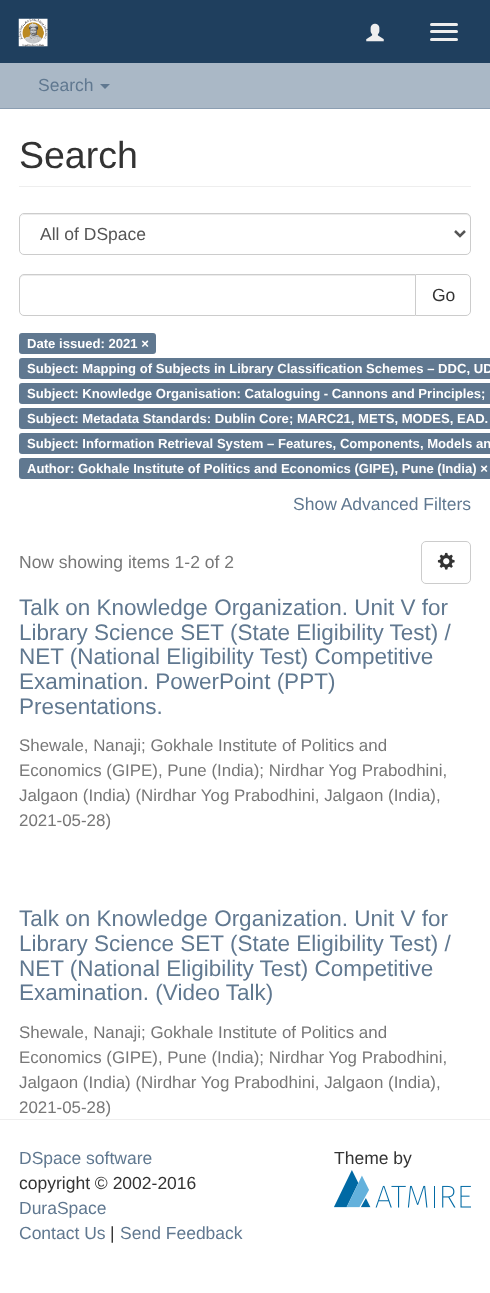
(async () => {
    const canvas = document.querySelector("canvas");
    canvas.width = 490;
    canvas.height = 1293;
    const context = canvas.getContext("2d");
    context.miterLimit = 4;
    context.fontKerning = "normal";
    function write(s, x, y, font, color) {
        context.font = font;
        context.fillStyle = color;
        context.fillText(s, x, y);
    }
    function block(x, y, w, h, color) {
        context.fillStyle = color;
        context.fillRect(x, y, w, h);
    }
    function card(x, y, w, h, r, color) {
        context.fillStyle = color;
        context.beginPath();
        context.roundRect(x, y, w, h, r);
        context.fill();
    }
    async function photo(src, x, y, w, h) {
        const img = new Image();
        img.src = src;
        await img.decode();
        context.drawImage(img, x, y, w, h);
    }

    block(0, 0, 490, 1293, "rgb(170, 184, 198)");
    block(0, 0, 490, 63, "rgb(31, 63, 94)");
    await photo("media/1.png", 18, 18, 30, 29);
    await photo("media/2.png", 366, 23, 18, 19);
    card(430, 23, 28, 3, 1.5, "rgb(238, 238, 238)");
    card(430, 30, 28, 3, 1.5, "rgb(238, 238, 238)");
    card(430, 38, 28, 3, 1.5, "rgb(238, 238, 238)");
    block(0, 108, 490, 1, "rgb(139, 158, 178)");
    write("Search", 38, 91, "17.5px Liberation Sans", "rgb(96, 120, 144)");
    context.beginPath();
    context.moveTo(100, 84);
    context.lineTo(110, 84);
    context.lineTo(105, 89);
    context.closePath();
    context.fill();
    block(0, 109, 490, 1184, "rgb(255, 255, 255)");
    block(19, 186, 452, 1, "rgb(238, 238, 238)");
    write("Search", 19, 168, "37.5px Liberation Sans", "rgb(51, 51, 51)");
    context.fillStyle = "rgb(236, 236, 236)";
    context.beginPath();
    context.moveTo(24, 215);
    context.lineTo(466, 215);
    context.bezierCurveTo(468, 215, 470, 217, 470, 219);
    context.bezierCurveTo(470, 216, 469, 214, 466, 214);
    context.lineTo(24, 214);
    context.lineTo(22, 215);
    context.lineTo(21, 216);
    context.lineTo(20, 219);
    context.bezierCurveTo(20, 217, 22, 215, 24, 215);
    context.closePath();
    context.fill();
    context.beginPath();
    context.roundRect(19.5, 213.5, 451, 41, 4.5);
    context.strokeStyle = "rgb(204, 204, 204)";
    context.stroke();
    context.beginPath();
    context.moveTo(455, 231);
    context.lineTo(460, 236);
    context.lineTo(465, 231);
    context.strokeStyle = "rgb(85, 85, 85)";
    context.lineWidth = 2.5;
    context.stroke();
    write("All of DSpace", 40, 240, "17.5px Liberation Sans", "rgb(85, 85, 85)");
    context.beginPath();
    context.roundRect(415.5, 274.5, 55, 41, [0, 4.5, 4.5, 0]);
    context.strokeStyle = "rgb(204, 204, 204)";
    context.lineWidth = 1;
    context.stroke();
    context.fillStyle = "rgb(255, 255, 255)";
    context.beginPath();
    context.roundRect(19, 274, 397, 42, [5, 0, 0, 5]);
    context.fill();
    context.fillStyle = "rgb(236, 236, 236)";
    context.beginPath();
    context.moveTo(24, 276);
    context.lineTo(415, 276);
    context.lineTo(415, 275);
    context.lineTo(24, 275);
    context.bezierCurveTo(21, 275, 20, 277, 20, 280);
    context.bezierCurveTo(20, 278, 22, 276, 24, 276);
    context.closePath();
    context.fill();
    context.beginPath();
    context.roundRect(19.5, 274.5, 396, 41, [4.5, 0, 0, 4.5]);
    context.stroke();
    write("Go", 432, 301, "17.5px Liberation Sans", "rgb(51, 51, 51)");
    card(19, 333, 137, 21, 3, "rgb(96, 120, 144)");
    write("Date issued: 2021 ×", 27, 348, "bold 13.1px Liberation Sans", "rgb(255, 255, 255)");
    context.fillStyle = "rgb(96, 120, 144)";
    context.beginPath();
    context.roundRect(19, 358, 471, 21, [3, 0, 0, 3]);
    context.fill();
    write("Subject: Mapping of Subjects in Library Classification Schemes – DDC, UD", 27, 373, "bold 13.1px Liberation Sans", "rgb(255, 255, 255)");
    context.fillStyle = "rgb(96, 120, 144)";
    context.beginPath();
    context.roundRect(19, 383, 471, 21, [3, 0, 0, 3]);
    context.fill();
    write("Subject: Knowledge Organisation: Cataloguing - Cannons and Principles;", 27, 398, "bold 13.1px Liberation Sans", "rgb(255, 255, 255)");
    context.fillStyle = "rgb(96, 120, 144)";
    context.beginPath();
    context.roundRect(19, 408, 471, 21, [3, 0, 0, 3]);
    context.fill();
    write("Subject: Metadata Standards: Dublin Core; MARC21, METS, MODES, EAD.", 27, 423, "bold 13.1px Liberation Sans", "rgb(255, 255, 255)");
    context.fillStyle = "rgb(96, 120, 144)";
    context.beginPath();
    context.roundRect(19, 433, 471, 21, [3, 0, 0, 3]);
    context.fill();
    write("Subject: Information Retrieval System – Features, Components, Models an", 27, 448, "bold 13.1px Liberation Sans", "rgb(255, 255, 255)");
    context.fillStyle = "rgb(96, 120, 144)";
    context.beginPath();
    context.roundRect(19, 458, 471, 21, [3, 0, 0, 3]);
    context.fill();
    write("Author: Gokhale Institute of Politics and Economics (GIPE), Pune (India) ×", 27, 473, "bold 13.1px Liberation Sans", "rgb(255, 255, 255)");
    write("Show Advanced Filters", 293, 510, "17.5px Liberation Sans", "rgb(96, 120, 144)");
    write("Now showing items 1-2 of 2", 19, 568, "17.5px Liberation Sans", "rgb(119, 119, 119)");
    context.beginPath();
    context.roundRect(421.5, 541.5, 49, 42, 4.5);
    context.stroke();
    await photo("media/3.png", 437, 552, 18, 18);
    write("Talk on Knowledge Organization. Unit V for", 19, 615, "22.5px Liberation Sans", "rgb(96, 120, 144)");
    write("Library Science SET (State Eligibility Test) /", 19, 640, "22.5px Liberation Sans", "rgb(96, 120, 144)");
    write("NET (National Eligibility Test) Competitive", 19, 664, "22.5px Liberation Sans", "rgb(96, 120, 144)");
    write("Examination. PowerPoint (PPT)", 19, 689, "22.5px Liberation Sans", "rgb(96, 120, 144)");
    write("Presentations.", 19, 714, "22.5px Liberation Sans", "rgb(96, 120, 144)");
    write("Shewale, Nanaji; Gokhale Institute of Politics and", 19, 751, "16.9px Liberation Sans", "rgb(119, 119, 119)");
    write("Economics (GIPE), Pune (India); Nirdhar Yog Prabodhini,", 19, 776, "16.9px Liberation Sans", "rgb(119, 119, 119)");
    write("Jalgaon (India) (Nirdhar Yog Prabodhini, Jalgaon (India),", 19, 801, "16.9px Liberation Sans", "rgb(119, 119, 119)");
    write("2021-05-28)", 19, 826, "16.9px Liberation Sans", "rgb(119, 119, 119)");
    write("Talk on Knowledge Organization. Unit V for", 19, 926, "22.5px Liberation Sans", "rgb(96, 120, 144)");
    write("Library Science SET (State Eligibility Test) /", 19, 951, "22.5px Liberation Sans", "rgb(96, 120, 144)");
    write("NET (National Eligibility Test) Competitive", 19, 976, "22.5px Liberation Sans", "rgb(96, 120, 144)");
    write("Examination. (Video Talk)", 19, 1000, "22.5px Liberation Sans", "rgb(96, 120, 144)");
    write("Shewale, Nanaji; Gokhale Institute of Politics and", 19, 1038, "16.9px Liberation Sans", "rgb(119, 119, 119)");
    write("Economics (GIPE), Pune (India); Nirdhar Yog Prabodhini,", 19, 1063, "16.9px Liberation Sans", "rgb(119, 119, 119)");
    write("Jalgaon (India) (Nirdhar Yog Prabodhini, Jalgaon (India),", 19, 1088, "16.9px Liberation Sans", "rgb(119, 119, 119)");
    write("2021-05-28)", 19, 1113, "16.9px Liberation Sans", "rgb(119, 119, 119)");
    block(0, 1119, 490, 1, "rgb(238, 238, 238)");
    write("DSpace software", 19, 1164, "17.5px Liberation Sans", "rgb(96, 120, 144)");
    write("copyright © 2002-2016", 19, 1189, "17.5px Liberation Sans", "rgb(51, 51, 51)");
    write("DuraSpace", 19, 1214, "17.5px Liberation Sans", "rgb(96, 120, 144)");
    write("Contact Us", 19, 1239, "17.5px Liberation Sans", "rgb(96, 120, 144)");
    write("|", 110, 1239, "17.5px Liberation Sans", "rgb(51, 51, 51)");
    write("Send Feedback", 120, 1239, "17.5px Liberation Sans", "rgb(96, 120, 144)");
    write("Theme by", 334, 1164, "17.5px Liberation Sans", "rgb(51, 51, 51)");
    await photo("media/4.png", 334, 1170, 137, 38);
})();
